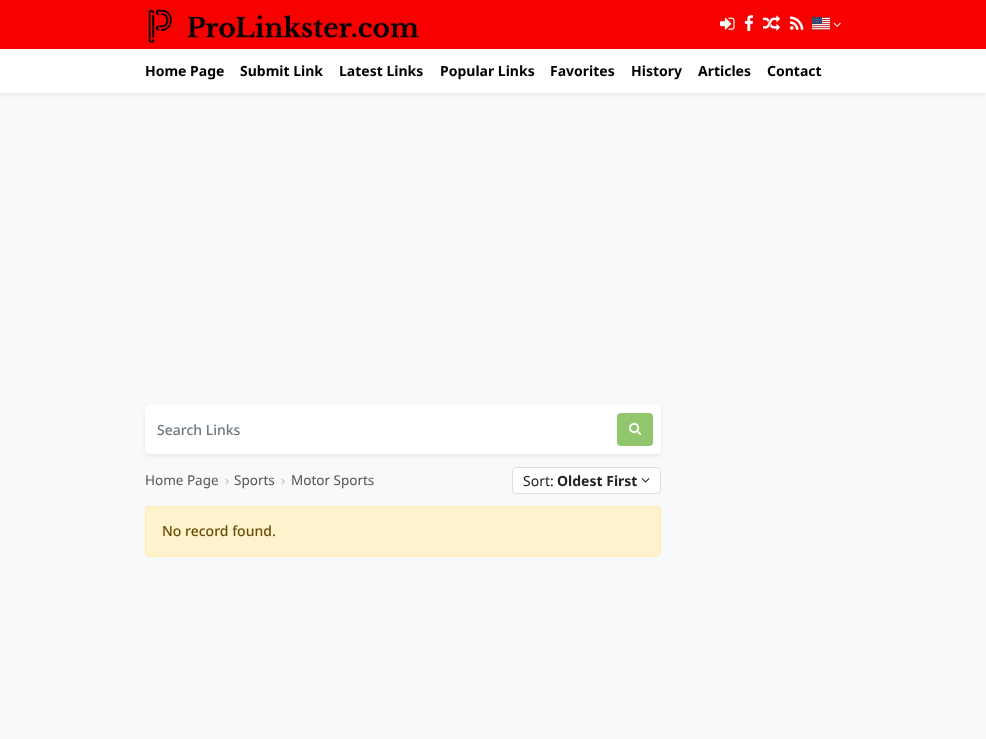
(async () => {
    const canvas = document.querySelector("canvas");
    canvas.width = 986;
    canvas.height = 739;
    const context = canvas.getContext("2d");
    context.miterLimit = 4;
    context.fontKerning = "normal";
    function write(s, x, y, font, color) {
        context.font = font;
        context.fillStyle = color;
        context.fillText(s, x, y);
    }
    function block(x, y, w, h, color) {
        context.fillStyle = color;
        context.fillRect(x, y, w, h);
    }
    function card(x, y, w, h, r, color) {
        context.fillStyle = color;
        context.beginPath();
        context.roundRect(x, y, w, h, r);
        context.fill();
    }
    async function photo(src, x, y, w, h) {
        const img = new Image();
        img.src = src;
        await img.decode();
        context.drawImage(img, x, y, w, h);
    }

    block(0, 0, 986, 739, "rgb(248, 249, 250)");
    block(0, 0, 986, 49, "rgb(247, 0, 0)");
    await photo("media/1.png", 148, 9, 271, 35);
    await photo("media/2.png", 720, 17, 15, 13);
    await photo("media/3.png", 744, 15, 10, 16);
    await photo("media/4.png", 763, 15, 17, 16);
    await photo("media/5.png", 790, 16, 14, 14);
    await photo("media/6.png", 812, 17, 18, 13);
    await photo("media/7.png", 833, 22, 8, 5);
    context.fillStyle = "rgba(0, 0, 0, 0.07)";
    context.filter = "blur(2px)";
    context.beginPath();
    context.rect(0, 51, 986, 44);
    context.fill();
    context.filter = "none";
    block(0, 49, 986, 44, "rgb(255, 255, 255)");
    write("Home Page", 145, 76, "bold 14px Noto Sans", "rgb(0, 0, 0)");
    write("Submit Link", 240, 76, "bold 14px Noto Sans", "rgb(0, 0, 0)");
    write("Latest Links", 339, 76, "bold 14px Noto Sans", "rgb(0, 0, 0)");
    write("Popular Links", 440, 76, "bold 14px Noto Sans", "rgb(0, 0, 0)");
    write("Favorites", 550, 76, "bold 14px Noto Sans", "rgb(0, 0, 0)");
    write("History", 631, 76, "bold 14px Noto Sans", "rgb(0, 0, 0)");
    write("Articles", 698, 76, "bold 14px Noto Sans", "rgb(0, 0, 0)");
    write("Contact", 767, 76, "bold 14px Noto Sans", "rgb(0, 0, 0)");
    context.fillStyle = "rgba(0, 0, 0, 0.07)";
    context.filter = "blur(2px)";
    context.beginPath();
    context.roundRect(145, 407, 516, 49, 4);
    context.fill();
    context.filter = "none";
    card(145, 405, 516, 49, 4, "rgb(255, 255, 255)");
    write("Search Links", 157, 435, "500 14px Noto Sans", "rgb(108, 117, 125)");
    card(617, 413, 36, 33, 4, "rgb(146, 198, 108)");
    await photo("media/8.png", 629, 422, 12, 13);
    write("Home Page", 145, 485, "13.5px Noto Sans", "rgb(85, 85, 85)");
    write("›", 225, 485, "13.5px Noto Sans", "rgb(187, 187, 187)");
    write("Sports", 234, 485, "13.5px Noto Sans", "rgb(85, 85, 85)");
    write("›", 281, 485, "13.5px Noto Sans", "rgb(187, 187, 187)");
    write("Motor Sports", 291, 485, "13.5px Noto Sans", "rgb(85, 85, 85)");
    context.fillStyle = "rgb(255, 255, 255)";
    context.beginPath();
    context.roundRect(512.5, 467.5, 148, 26, 3.5);
    context.fill();
    context.strokeStyle = "rgb(221, 221, 221)";
    context.stroke();
    write("Sort:", 523, 486, "14px Noto Sans", "rgb(33, 37, 41)");
    write("Oldest First", 557, 486, "bold 14px Noto Sans", "rgb(33, 37, 41)");
    await photo("media/9.png", 641, 478, 9, 5);
    context.fillStyle = "rgb(255, 243, 205)";
    context.beginPath();
    context.roundRect(145.5, 506.5, 515, 50, 3.5);
    context.fill();
    context.strokeStyle = "rgb(255, 236, 181)";
    context.stroke();
    write("No record found.", 162, 536, "500 14px Noto Sans", "rgb(102, 77, 3)");
})();
